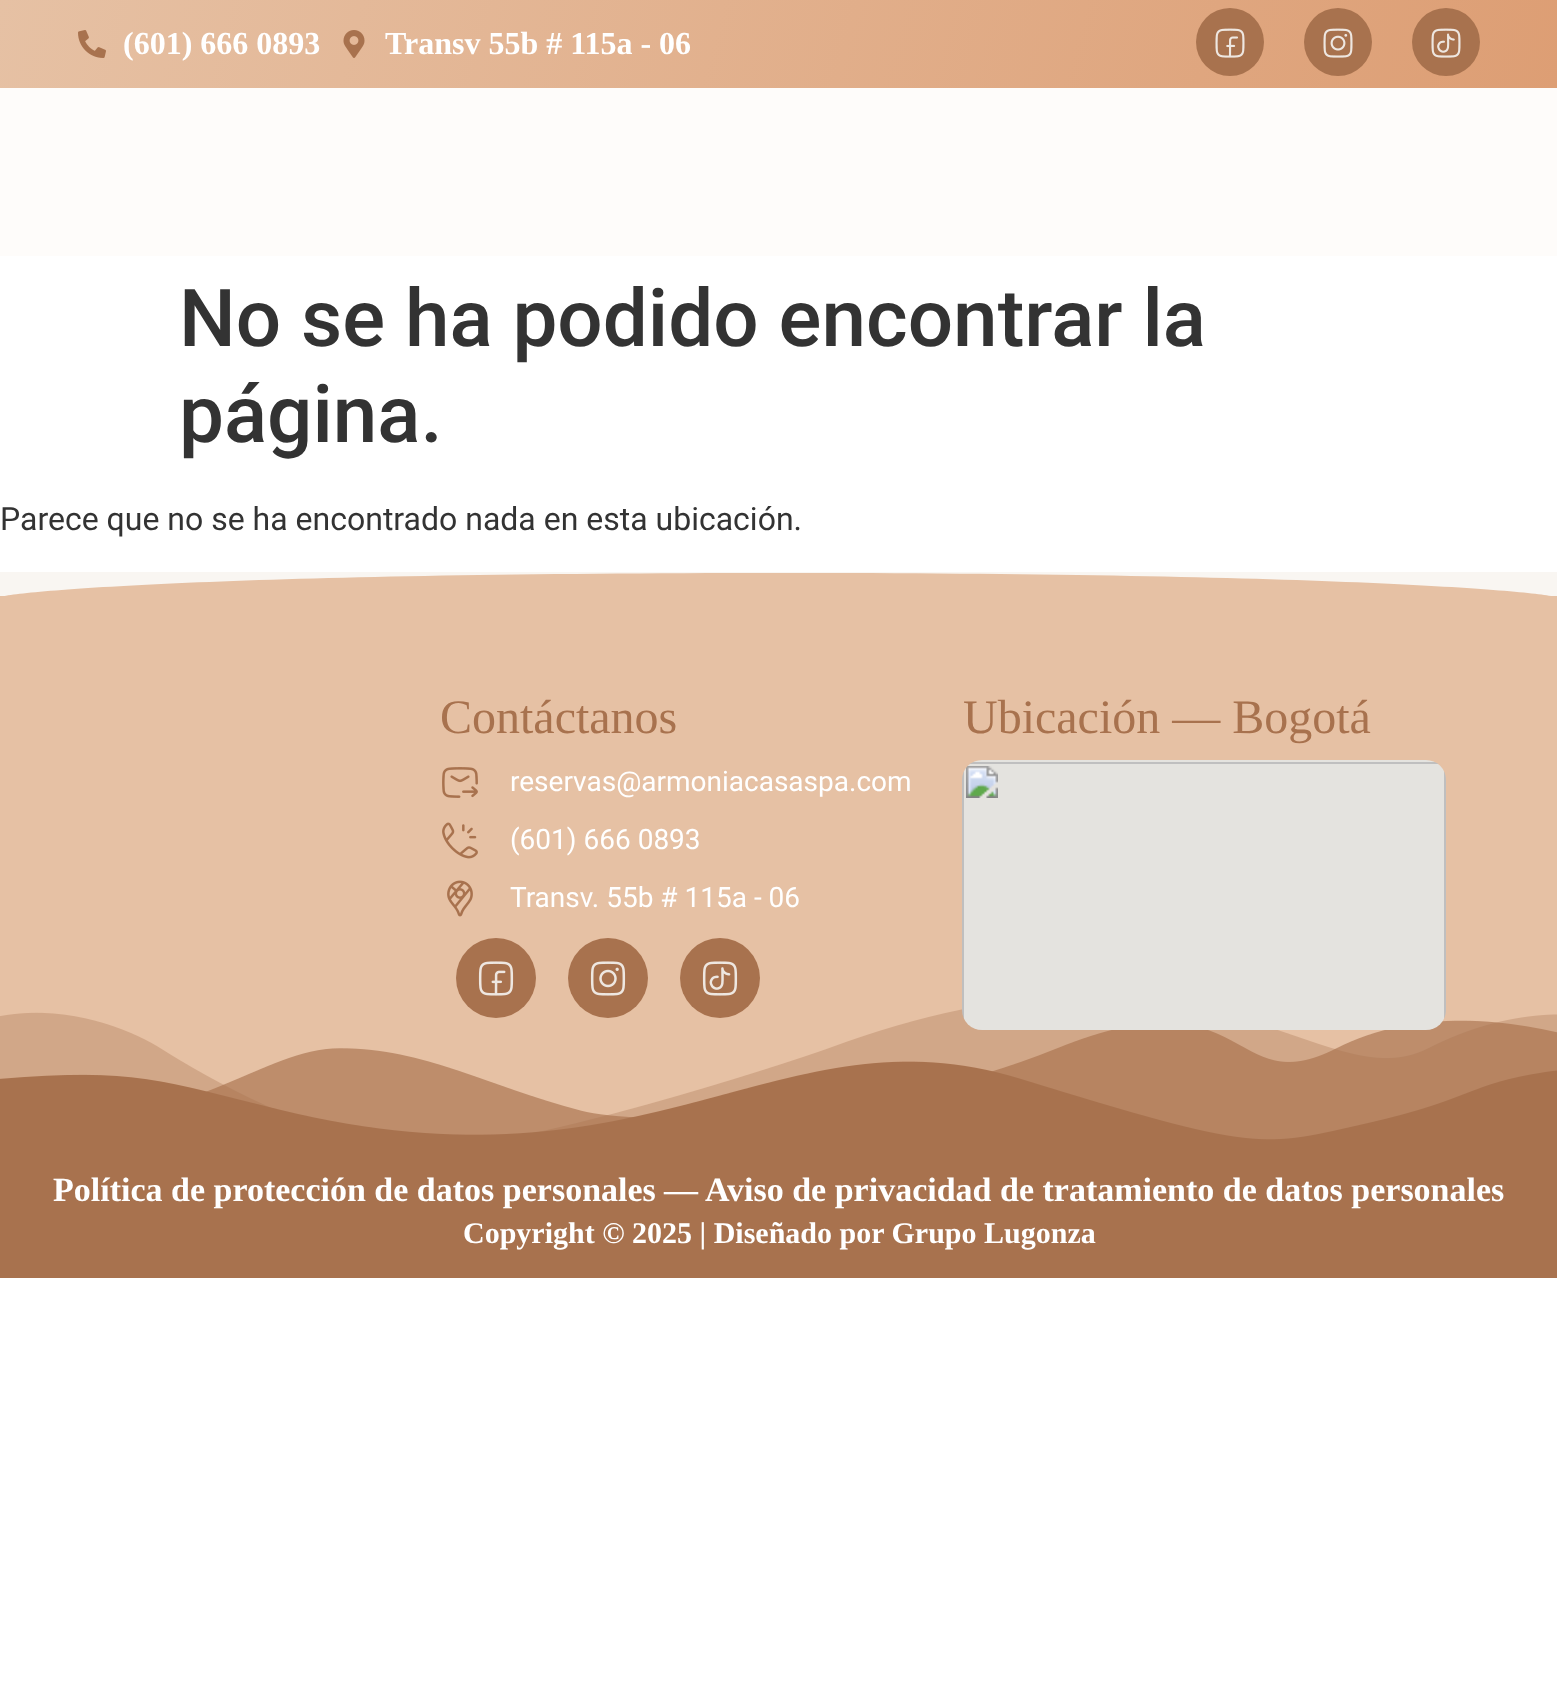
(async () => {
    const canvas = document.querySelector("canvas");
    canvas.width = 1557;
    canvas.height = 1706;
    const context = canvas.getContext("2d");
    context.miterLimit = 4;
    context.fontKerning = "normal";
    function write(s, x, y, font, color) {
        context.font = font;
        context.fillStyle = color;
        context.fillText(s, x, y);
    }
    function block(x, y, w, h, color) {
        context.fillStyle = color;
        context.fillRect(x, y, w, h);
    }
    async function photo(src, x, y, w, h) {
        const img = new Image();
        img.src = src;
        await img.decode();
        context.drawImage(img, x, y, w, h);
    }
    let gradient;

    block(0, 0, 1557, 1706, "rgb(255, 255, 255)");
    gradient = context.createLinearGradient(41, -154, 1517, 242);
    gradient.addColorStop(0, "rgb(230, 193, 164)");
    gradient.addColorStop(1, "rgb(221, 158, 116)");
    context.fillStyle = gradient;
    context.fillRect(0, 0, 1557, 88);
    await photo("media/1.png", 78, 30, 28, 28);
    write("(601) 666 0893", 123, 54, "bold 32px Liberation Serif", "rgb(255, 255, 255)");
    await photo("media/2.png", 343, 30, 22, 28);
    write("Transv 55b # 115a - 06", 385, 54, "bold 32px Liberation Serif", "rgb(255, 255, 255)");
    context.fillStyle = "rgb(168, 114, 78)";
    context.beginPath();
    context.arc(1230, 42, 34, 0, Math.PI * 2);
    context.fill();
    await photo("media/3.png", 1215, 28, 30, 30);
    context.beginPath();
    context.arc(1338, 42, 34, 0, Math.PI * 2);
    context.fill();
    await photo("media/4.png", 1323, 28, 30, 30);
    context.beginPath();
    context.arc(1446, 42, 34, 0, Math.PI * 2);
    context.fill();
    await photo("media/5.png", 1431, 28, 30, 30);
    block(0, 88, 1557, 168, "rgb(254, 252, 250)");
    write("No se ha podido encontrar la", 179, 346, "500 80px Roboto", "rgb(51, 51, 51)");
    write("página.", 179, 442, "500 80px Roboto", "rgb(51, 51, 51)");
    write("Parece que no se ha encontrado nada en esta ubicación.", 0, 530, "32px Roboto", "rgb(51, 51, 51)");
    block(0, 573, 1557, 567, "rgb(230, 193, 164)");
    context.save();
    context.beginPath();
    context.rect(0, 570, 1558, 26);
    context.clip();
    context.fillStyle = "rgb(249, 246, 242)";
    context.beginPath();
    context.moveTo(778, 573);
    context.bezierCurveTo(1361, 573, 1557, 593, 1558, 598);
    context.lineTo(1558, 572);
    context.lineTo(-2, 572);
    context.lineTo(-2, 598);
    context.bezierCurveTo(-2, 593, 195, 573, 778, 573);
    context.closePath();
    context.fill();
    context.restore();
    write("Contáctanos", 440, 733, "48px Liberation Serif", "rgb(168, 114, 78)");
    await photo("media/6.png", 442, 767, 36, 31);
    write("reservas@armoniacasaspa.com", 510, 791, "28px Roboto", "rgb(255, 255, 255)");
    await photo("media/7.png", 442, 822, 36, 37);
    write("(601) 666 0893", 510, 849, "28px Roboto", "rgb(255, 255, 255)");
    await photo("media/8.png", 447, 880, 26, 37);
    write("Transv. 55b # 115a - 06", 510, 907, "28px Roboto", "rgb(255, 255, 255)");
    await photo("media/13.png", 0, 1009, 1557, 143);
    context.fillStyle = "rgb(168, 114, 78)";
    context.beginPath();
    context.arc(496, 978, 40, 0, Math.PI * 2);
    context.fill();
    await photo("media/9.png", 478, 961, 36, 35);
    context.beginPath();
    context.arc(608, 978, 40, 0, Math.PI * 2);
    context.fill();
    await photo("media/10.png", 590, 961, 36, 35);
    context.beginPath();
    context.arc(720, 978, 40, 0, Math.PI * 2);
    context.fill();
    await photo("media/11.png", 702, 961, 36, 35);
    write("Ubicación — Bogotá", 963, 733, "48px Liberation Serif", "rgb(168, 114, 78)");
    await photo("media/12.png", 962, 760, 484, 270);
    block(0, 1152, 1557, 126, "rgb(168, 114, 78)");
    write("Política de protección de datos personales", 53, 1201, "bold 34px Liberation Serif", "rgb(255, 255, 255)");
    write("—", 664, 1201, "bold 34px Liberation Serif", "rgb(255, 255, 255)");
    write("Aviso de privacidad de tratamiento de datos personales", 705, 1201, "bold 34px Liberation Serif", "rgb(255, 255, 255)");
    write("Copyright © 2025 | Diseñado por Grupo Lugonza", 463, 1243, "bold 30px Liberation Serif", "rgb(255, 255, 255)");
})();
